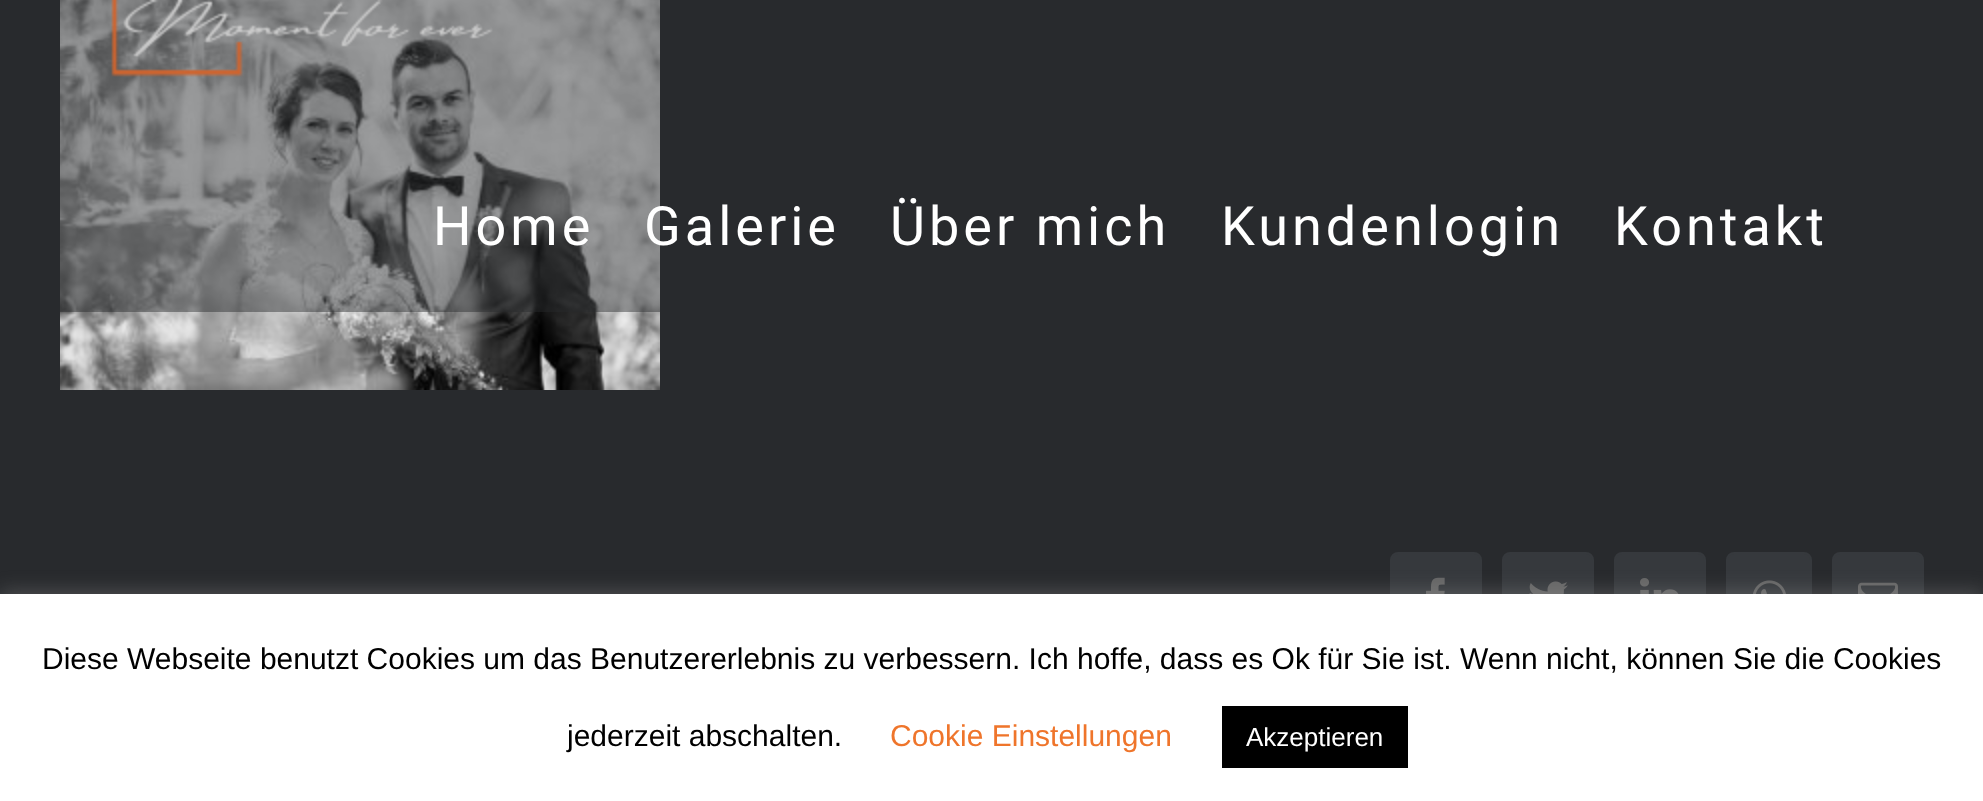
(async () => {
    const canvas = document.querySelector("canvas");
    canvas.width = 1983;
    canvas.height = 801;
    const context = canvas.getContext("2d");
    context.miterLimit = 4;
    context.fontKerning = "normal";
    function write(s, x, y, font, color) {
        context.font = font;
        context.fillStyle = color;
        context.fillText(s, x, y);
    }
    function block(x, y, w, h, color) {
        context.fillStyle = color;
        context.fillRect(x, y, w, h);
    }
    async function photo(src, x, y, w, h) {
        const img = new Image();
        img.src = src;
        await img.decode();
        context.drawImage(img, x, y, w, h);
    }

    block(0, 0, 1983, 801, "rgb(40, 42, 45)");
    await photo("media/1.png", 60, 0, 600, 390);
    context.fillStyle = "rgb(54, 57, 61)";
    context.beginPath();
    context.roundRect(1391, 553, 90, 90, 7);
    context.fill();
    context.strokeStyle = "rgb(54, 57, 61)";
    context.lineWidth = 2;
    context.stroke();
    await photo("media/2.png", 1426, 577, 19, 17);
    context.beginPath();
    context.roundRect(1503, 553, 90, 90, 7);
    context.fill();
    context.stroke();
    await photo("media/3.png", 1529, 581, 39, 13);
    context.beginPath();
    context.roundRect(1615, 553, 90, 90, 7);
    context.fill();
    context.stroke();
    await photo("media/4.png", 1640, 578, 39, 16);
    context.beginPath();
    context.roundRect(1727, 553, 84, 90, 7);
    context.fill();
    context.stroke();
    await photo("media/5.png", 1753, 580, 33, 14);
    context.beginPath();
    context.roundRect(1833, 553, 90, 90, 7);
    context.fill();
    context.stroke();
    await photo("media/6.png", 1858, 582, 40, 12);
    block(60, 0, 600, 312, "rgba(40, 42, 45, 0.45)");
    await photo("media/7.png", 111, 0, 382, 77);
    context.letterSpacing = "4px";
    write("Home", 433, 245, "54px Roboto", "rgb(255, 255, 255)");
    write("Galerie", 644, 245, "54px Roboto", "rgb(255, 255, 255)");
    write("Über mich", 890, 245, "54px Roboto", "rgb(255, 255, 255)");
    write("Kundenlogin", 1221, 245, "54px Roboto", "rgb(255, 255, 255)");
    write("Kontakt", 1614, 245, "54px Roboto", "rgb(255, 255, 255)");
    context.fillStyle = "rgba(172, 171, 171, 0.3)";
    context.filter = "blur(10px)";
    context.beginPath();
    context.rect(0, 592, 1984, 208);
    context.fill();
    context.filter = "none";
    block(0, 594, 1983, 207, "rgb(255, 255, 255)");
    context.letterSpacing = "0px";
    write("Diese Webseite benutzt Cookies um das Benutzererlebnis zu verbessern. Ich hoffe, dass es Ok für Sie ist. Wenn nicht, können Sie die Cookies", 42, 669, "30px Liberation Sans", "rgb(0, 0, 0)");
    write("jederzeit abschalten.", 567, 746, "30px Liberation Sans", "rgb(0, 0, 0)");
    write("Cookie Einstellungen", 890, 746, "30px Liberation Sans", "rgb(239, 117, 43)");
    block(1222, 706, 186, 62, "rgb(0, 0, 0)");
    write("Akzeptieren", 1246, 746, "26px Liberation Sans", "rgb(255, 255, 255)");
})();
